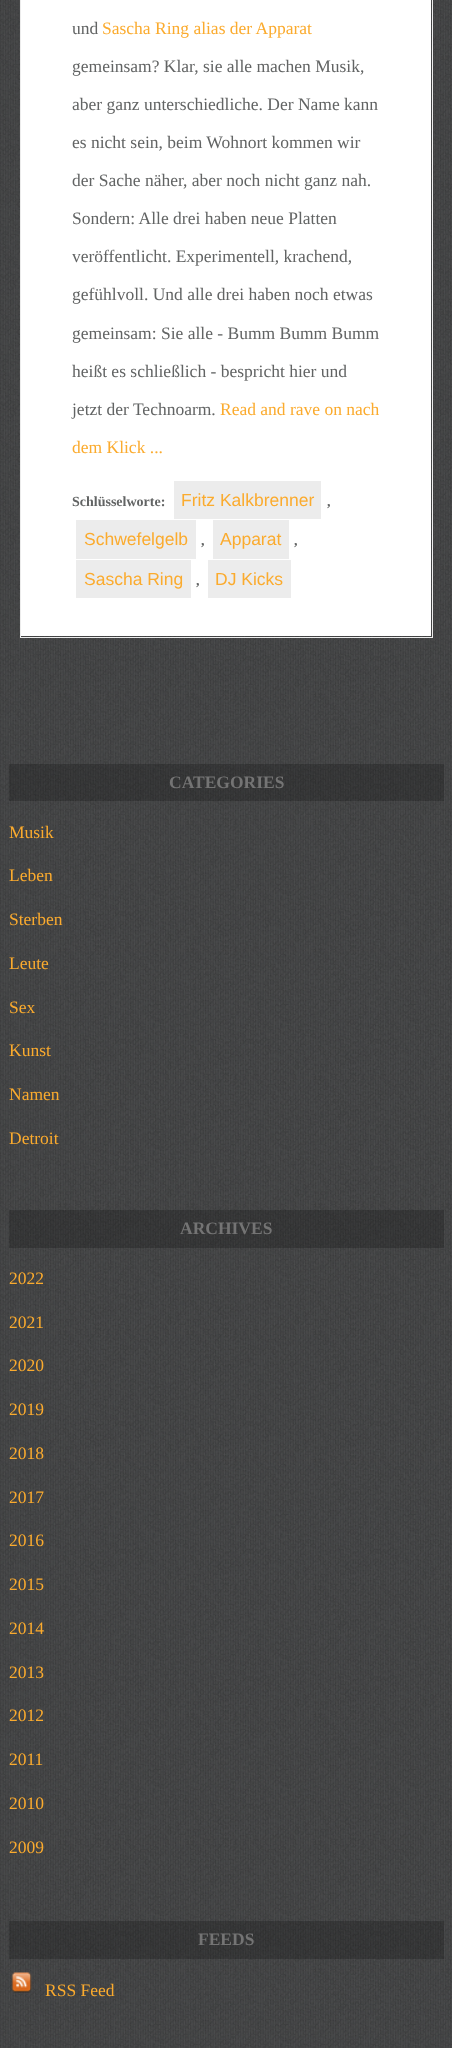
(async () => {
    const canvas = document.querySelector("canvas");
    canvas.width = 452;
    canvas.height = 2048;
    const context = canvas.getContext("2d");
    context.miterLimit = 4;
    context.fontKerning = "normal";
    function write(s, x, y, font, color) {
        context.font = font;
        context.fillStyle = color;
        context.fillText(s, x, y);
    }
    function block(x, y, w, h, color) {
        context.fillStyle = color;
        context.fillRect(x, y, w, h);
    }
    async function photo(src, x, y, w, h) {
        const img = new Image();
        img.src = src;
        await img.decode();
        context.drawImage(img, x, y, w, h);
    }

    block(0, 0, 452, 2048, "rgb(255, 255, 255)");
    await photo("media/1.png", 0, 0, 452, 2048);
    block(21, 0, 410, 636, "rgb(255, 255, 255)");
    context.strokeStyle = "rgb(236, 236, 236)";
    context.strokeRect(20.5, -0.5, 412, 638);
    write("und", 72, 34, "17.5px Liberation Serif", "rgb(98, 100, 100)");
    write("Sascha Ring alias der Apparat", 102, 34, "17.5px Liberation Serif", "rgb(251, 171, 46)");
    write("gemeinsam? Klar, sie alle machen Musik,", 72, 72, "17.5px Liberation Serif", "rgb(98, 100, 100)");
    write("aber ganz unterschiedliche. Der Name kann", 72, 110, "17.5px Liberation Serif", "rgb(98, 100, 100)");
    write("es nicht sein, beim Wohnort kommen wir", 72, 148, "17.5px Liberation Serif", "rgb(98, 100, 100)");
    write("der Sache näher, aber noch nicht ganz nah.", 72, 186, "17.5px Liberation Serif", "rgb(98, 100, 100)");
    write("Sondern: Alle drei haben neue Platten", 72, 224, "17.5px Liberation Serif", "rgb(98, 100, 100)");
    write("veröffentlicht. Experimentell, krachend,", 72, 262, "17.5px Liberation Serif", "rgb(98, 100, 100)");
    write("gefühlvoll. Und alle drei haben noch etwas", 72, 300, "17.5px Liberation Serif", "rgb(98, 100, 100)");
    write("gemeinsam: Sie alle - Bumm Bumm Bumm", 72, 339, "17.5px Liberation Serif", "rgb(98, 100, 100)");
    write("heißt es schließlich - bespricht hier und", 72, 377, "17.5px Liberation Serif", "rgb(98, 100, 100)");
    write("jetzt der Technoarm.", 72, 415, "17.5px Liberation Serif", "rgb(98, 100, 100)");
    write("Read and rave on nach", 220, 415, "17.5px Liberation Serif", "rgb(251, 171, 46)");
    write("dem Klick ...", 72, 453, "17.5px Liberation Serif", "rgb(251, 171, 46)");
    write("Schlüsselworte:", 72, 506, "bold 14px Liberation Serif", "rgb(98, 100, 100)");
    block(174, 481, 147, 38, "rgb(236, 236, 236)");
    write("Fritz Kalkbrenner", 181, 506, "17.5px Liberation Sans", "rgb(251, 171, 46)");
    write(",", 327, 506, "bold 14px Liberation Serif", "rgb(98, 100, 100)");
    block(76, 520, 120, 39, "rgb(236, 236, 236)");
    write("Schwefelgelb", 84, 545, "17.5px Liberation Sans", "rgb(251, 171, 46)");
    write(",", 201, 545, "bold 14px Liberation Serif", "rgb(98, 100, 100)");
    block(213, 520, 76, 39, "rgb(236, 236, 236)");
    write("Apparat", 220, 545, "17.5px Liberation Sans", "rgb(251, 171, 46)");
    write(",", 294, 545, "bold 14px Liberation Serif", "rgb(98, 100, 100)");
    block(76, 560, 115, 38, "rgb(236, 236, 236)");
    write("Sascha Ring", 84, 585, "17.5px Liberation Sans", "rgb(251, 171, 46)");
    write(",", 196, 585, "bold 14px Liberation Serif", "rgb(98, 100, 100)");
    block(208, 560, 83, 38, "rgb(236, 236, 236)");
    write("DJ Kicks", 215, 585, "17.5px Liberation Sans", "rgb(251, 171, 46)");
    block(9, 764, 435, 37, "rgba(0, 0, 0, 0.2)");
    write("CATEGORIES", 169, 788, "bold 17.5px Liberation Serif", "rgb(116, 116, 116)");
    write("Musik", 9, 838, "17.5px Liberation Serif", "rgb(251, 171, 46)");
    write("Leben", 9, 881, "17.5px Liberation Serif", "rgb(251, 171, 46)");
    write("Sterben", 9, 925, "17.5px Liberation Serif", "rgb(251, 171, 46)");
    write("Leute", 9, 969, "17.5px Liberation Serif", "rgb(251, 171, 46)");
    write("Sex", 9, 1013, "17.5px Liberation Serif", "rgb(251, 171, 46)");
    write("Kunst", 9, 1056, "17.5px Liberation Serif", "rgb(251, 171, 46)");
    write("Namen", 9, 1100, "17.5px Liberation Serif", "rgb(251, 171, 46)");
    write("Detroit", 9, 1144, "17.5px Liberation Serif", "rgb(251, 171, 46)");
    block(9, 1210, 435, 38, "rgba(0, 0, 0, 0.2)");
    write("ARCHIVES", 180, 1234, "bold 17.5px Liberation Serif", "rgb(116, 116, 116)");
    write("2022", 9, 1284, "17.5px Liberation Serif", "rgb(251, 171, 46)");
    write("2021", 9, 1328, "17.5px Liberation Serif", "rgb(251, 171, 46)");
    write("2020", 9, 1371, "17.5px Liberation Serif", "rgb(251, 171, 46)");
    write("2019", 9, 1415, "17.5px Liberation Serif", "rgb(251, 171, 46)");
    write("2018", 9, 1459, "17.5px Liberation Serif", "rgb(251, 171, 46)");
    write("2017", 9, 1503, "17.5px Liberation Serif", "rgb(251, 171, 46)");
    write("2016", 9, 1546, "17.5px Liberation Serif", "rgb(251, 171, 46)");
    write("2015", 9, 1590, "17.5px Liberation Serif", "rgb(251, 171, 46)");
    write("2014", 9, 1634, "17.5px Liberation Serif", "rgb(251, 171, 46)");
    write("2013", 9, 1678, "17.5px Liberation Serif", "rgb(251, 171, 46)");
    write("2012", 9, 1721, "17.5px Liberation Serif", "rgb(251, 171, 46)");
    write("2011", 9, 1765, "17.5px Liberation Serif", "rgb(251, 171, 46)");
    write("2010", 9, 1809, "17.5px Liberation Serif", "rgb(251, 171, 46)");
    write("2009", 9, 1853, "17.5px Liberation Serif", "rgb(251, 171, 46)");
    block(9, 1921, 435, 38, "rgba(0, 0, 0, 0.2)");
    write("FEEDS", 198, 1945, "bold 17.5px Liberation Serif", "rgb(116, 116, 116)");
    await photo("media/2.png", 11, 1972, 21, 21);
    write("RSS Feed", 45, 1996, "17.5px Liberation Serif", "rgb(251, 171, 46)");
})();
